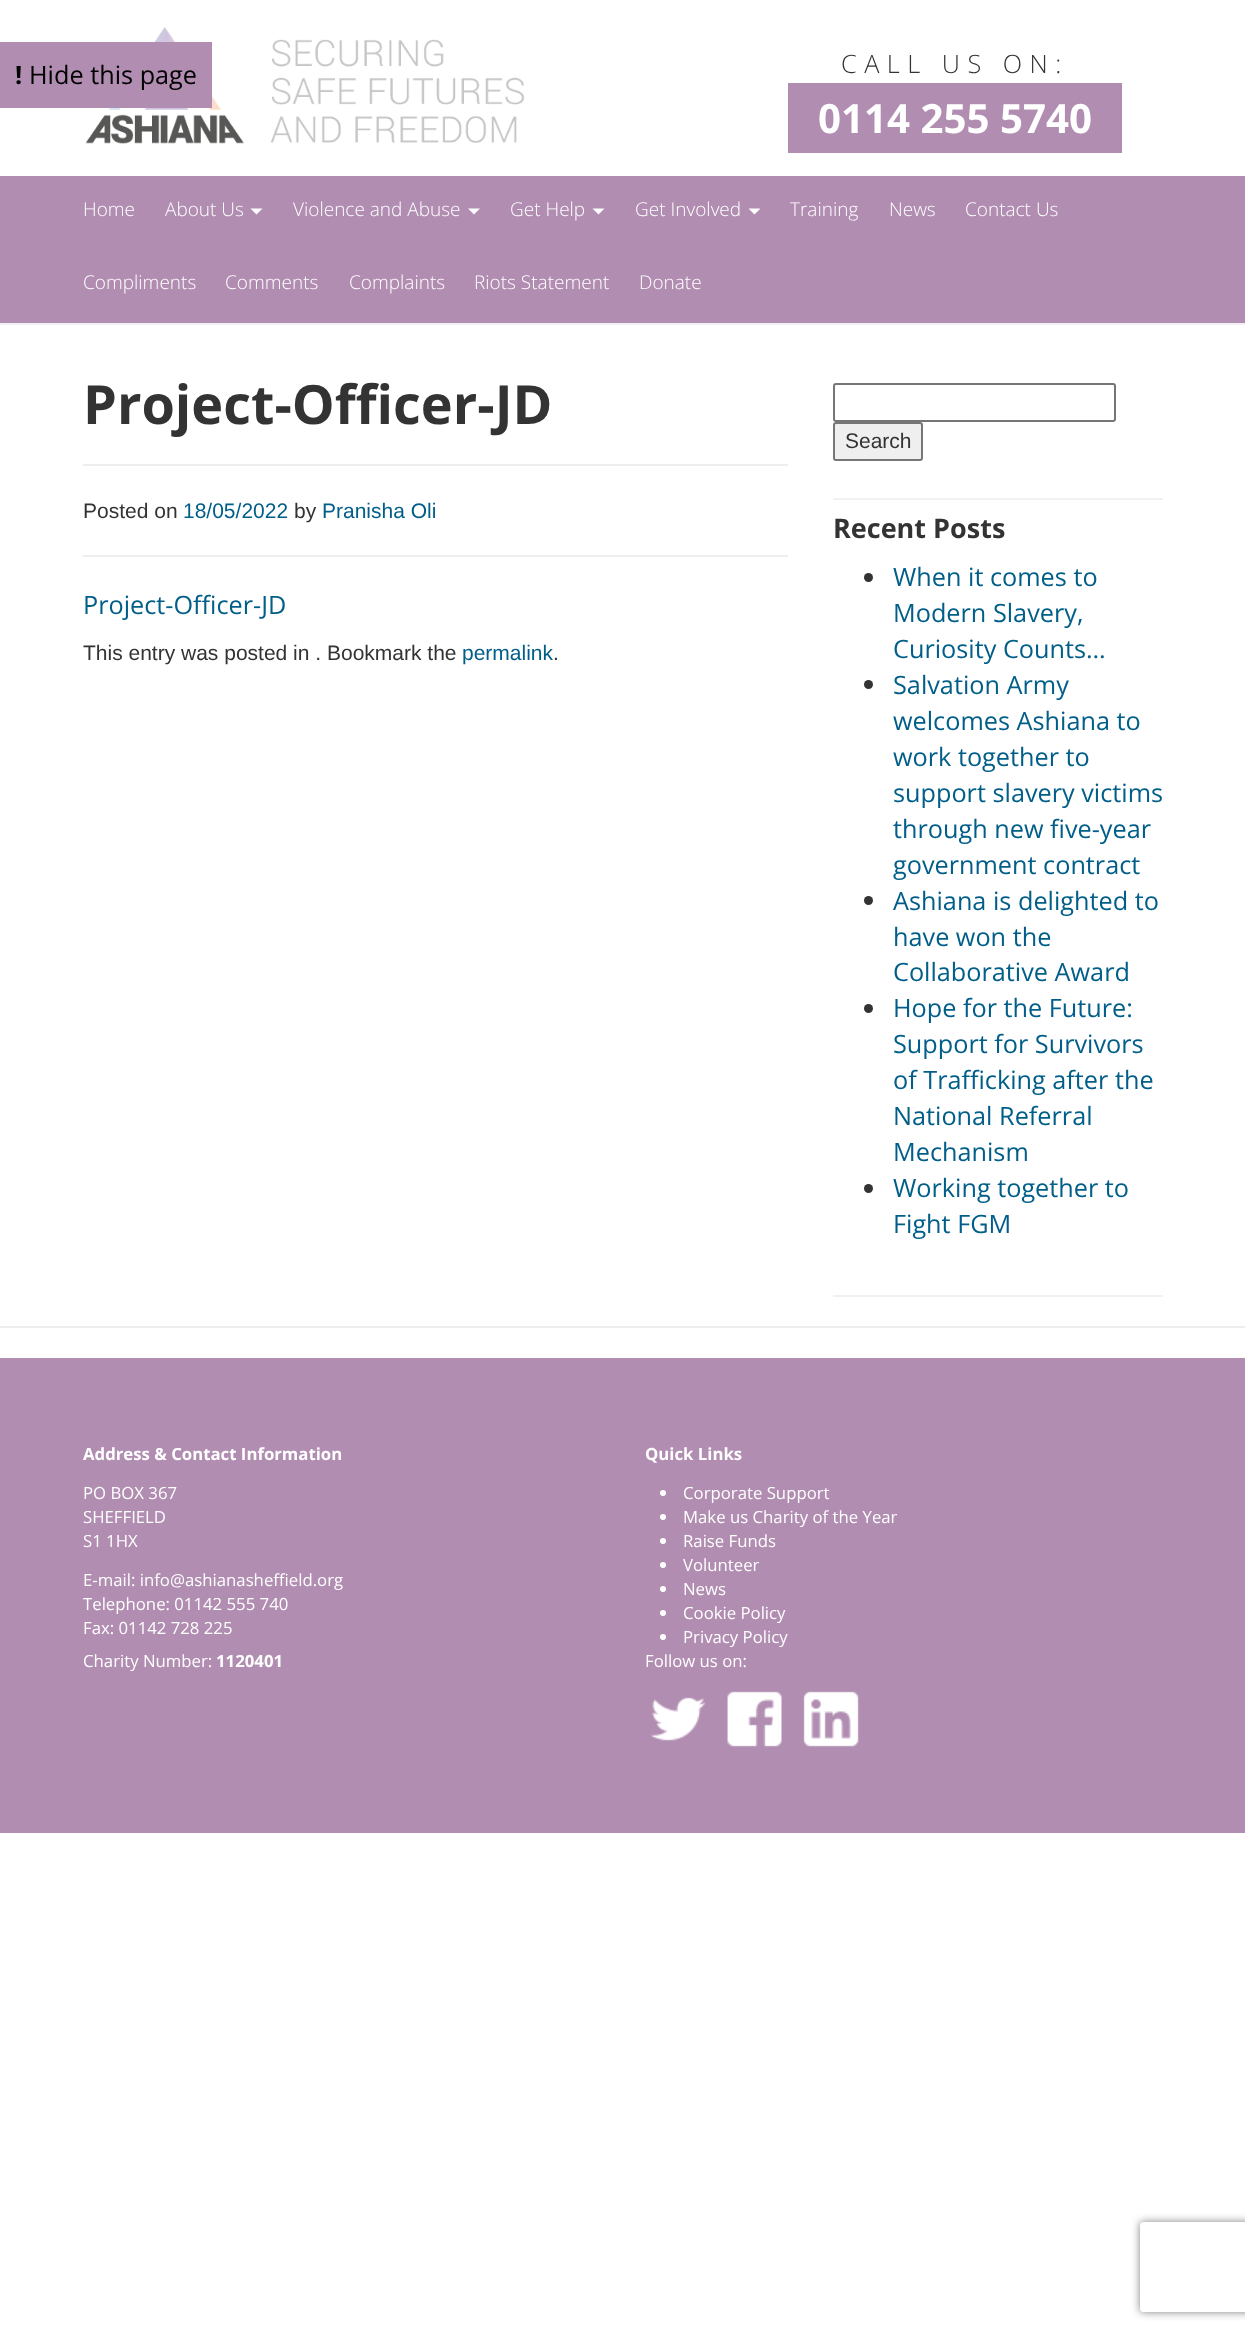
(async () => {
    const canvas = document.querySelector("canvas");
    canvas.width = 1245;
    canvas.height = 2332;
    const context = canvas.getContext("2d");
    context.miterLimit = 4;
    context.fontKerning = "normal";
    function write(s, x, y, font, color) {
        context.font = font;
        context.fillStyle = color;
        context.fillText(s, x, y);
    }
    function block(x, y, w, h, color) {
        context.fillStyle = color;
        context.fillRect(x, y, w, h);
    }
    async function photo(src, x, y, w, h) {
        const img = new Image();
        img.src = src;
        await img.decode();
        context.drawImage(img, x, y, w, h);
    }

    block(0, 0, 1245, 2332, "rgb(255, 255, 255)");
    await photo("media/1.png", 85, 27, 440, 117);
    block(0, 42, 212, 66, "rgb(177, 141, 177)");
    write("!", 15, 84, "bold 25.25px Open Sans", "rgb(0, 0, 0)");
    write("Hide this page", 29, 84, "25.25px Open Sans", "rgb(0, 0, 0)");
    context.letterSpacing = "7.5px";
    write("CALL US ON:", 841, 73, "300 25.25px Open Sans", "rgb(51, 51, 51)");
    block(788, 83, 334, 70, "rgb(177, 141, 177)");
    context.letterSpacing = "0px";
    write("0114 255 5740", 818, 133, "bold 40.25px Open Sans", "rgb(255, 255, 255)");
    block(0, 176, 1245, 147, "rgb(177, 141, 177)");
    write("Home", 83, 216, "300 19px Open Sans", "rgb(255, 255, 255)");
    write("About Us", 165, 216, "300 19px Open Sans", "rgb(255, 255, 255)");
    context.beginPath();
    context.moveTo(250.5, 208.5);
    context.lineTo(262.5, 208.5);
    context.lineTo(256.5, 214.5);
    context.closePath();
    context.fill();
    write("Violence and Abuse", 293, 216, "300 19px Open Sans", "rgb(255, 255, 255)");
    context.beginPath();
    context.moveTo(468, 208.5);
    context.lineTo(480, 208.5);
    context.lineTo(474, 214.5);
    context.closePath();
    context.fill();
    write("Get Help", 510, 216, "300 19px Open Sans", "rgb(255, 255, 255)");
    context.beginPath();
    context.moveTo(592.5, 208.5);
    context.lineTo(604.5, 208.5);
    context.lineTo(598.5, 214.5);
    context.closePath();
    context.fill();
    write("Get Involved", 635, 216, "300 19px Open Sans", "rgb(255, 255, 255)");
    context.beginPath();
    context.moveTo(748.5, 208.5);
    context.lineTo(760.5, 208.5);
    context.lineTo(754.5, 214.5);
    context.closePath();
    context.fill();
    write("Training", 790, 216, "300 19px Open Sans", "rgb(255, 255, 255)");
    write("News", 889, 216, "300 19px Open Sans", "rgb(255, 255, 255)");
    write("Contact Us", 965, 216, "300 19px Open Sans", "rgb(255, 255, 255)");
    write("Compliments", 83, 289, "300 19px Open Sans", "rgb(255, 255, 255)");
    write("Comments", 225, 289, "300 19px Open Sans", "rgb(255, 255, 255)");
    write("Complaints", 349, 289, "300 19px Open Sans", "rgb(255, 255, 255)");
    write("Riots Statement", 474, 289, "300 19px Open Sans", "rgb(255, 255, 255)");
    write("Donate", 639, 289, "300 19px Open Sans", "rgb(255, 255, 255)");
    block(0, 323, 1245, 2, "rgb(241, 241, 241)");
    write("Project-Officer-JD", 83, 424, "bold 54px Open Sans", "rgb(51, 51, 51)");
    block(83, 464, 705, 2, "rgb(238, 238, 238)");
    write("Posted on", 83, 518, "21px Liberation Sans", "rgb(51, 51, 51)");
    write("18/05/2022", 183, 518, "21px Liberation Sans", "rgb(0, 94, 136)");
    write("by", 294, 518, "21px Liberation Sans", "rgb(51, 51, 51)");
    write("Pranisha Oli", 322, 518, "21px Liberation Sans", "rgb(0, 94, 136)");
    block(83, 555, 705, 2, "rgb(238, 238, 238)");
    write("Project-Officer-JD", 83, 614, "25.25px Open Sans", "rgb(0, 94, 136)");
    write("This entry was posted in . Bookmark the", 83, 660, "21px Liberation Sans", "rgb(51, 51, 51)");
    write("permalink", 462, 660, "21px Liberation Sans", "rgb(0, 94, 136)");
    write(".", 553, 660, "21px Liberation Sans", "rgb(51, 51, 51)");
    block(833, 498, 330, 2, "rgb(241, 241, 241)");
    context.beginPath();
    context.roundRect(834, 384, 281, 37, 2);
    context.strokeStyle = "rgb(118, 118, 118)";
    context.lineWidth = 2;
    context.stroke();
    context.fillStyle = "rgb(239, 239, 239)";
    context.beginPath();
    context.roundRect(834, 423, 88, 37, 2);
    context.fill();
    context.stroke();
    write("Search", 845, 448, "21px Liberation Sans", "rgb(51, 51, 51)");
    block(833, 1295, 330, 2, "rgb(241, 241, 241)");
    write("Recent Posts", 833, 538, "bold 27px Open Sans", "rgb(51, 51, 51)");
    context.beginPath();
    context.arc(868.5, 577.5, 4.5, 0, Math.PI * 2);
    context.fill();
    write("When it comes to", 893, 586, "25.25px Open Sans", "rgb(0, 94, 136)");
    write("Modern Slavery,", 893, 622, "25.25px Open Sans", "rgb(0, 94, 136)");
    write("Curiosity Counts…", 893, 658, "25.25px Open Sans", "rgb(0, 94, 136)");
    context.fillStyle = "rgb(51, 51, 51)";
    context.beginPath();
    context.arc(868.5, 684.5, 4.5, 0, Math.PI * 2);
    context.fill();
    write("Salvation Army", 893, 694, "25.25px Open Sans", "rgb(0, 94, 136)");
    write("welcomes Ashiana to", 893, 730, "25.25px Open Sans", "rgb(0, 94, 136)");
    write("work together to", 893, 766, "25.25px Open Sans", "rgb(0, 94, 136)");
    write("support slavery victims", 893, 802, "25.25px Open Sans", "rgb(0, 94, 136)");
    write("through new five-year", 893, 838, "25.25px Open Sans", "rgb(0, 94, 136)");
    write("government contract", 893, 874, "25.25px Open Sans", "rgb(0, 94, 136)");
    context.fillStyle = "rgb(51, 51, 51)";
    context.beginPath();
    context.arc(868.5, 900.5, 4.5, 0, Math.PI * 2);
    context.fill();
    write("Ashiana is delighted to", 893, 910, "25.25px Open Sans", "rgb(0, 94, 136)");
    write("have won the", 893, 946, "25.25px Open Sans", "rgb(0, 94, 136)");
    write("Collaborative Award", 893, 981, "25.25px Open Sans", "rgb(0, 94, 136)");
    context.fillStyle = "rgb(51, 51, 51)";
    context.beginPath();
    context.arc(868.5, 1008.5, 4.5, 0, Math.PI * 2);
    context.fill();
    write("Hope for the Future:", 893, 1017, "25.25px Open Sans", "rgb(0, 94, 136)");
    write("Support for Survivors", 893, 1053, "25.25px Open Sans", "rgb(0, 94, 136)");
    write("of Trafficking after the", 893, 1089, "25.25px Open Sans", "rgb(0, 94, 136)");
    write("National Referral", 893, 1125, "25.25px Open Sans", "rgb(0, 94, 136)");
    write("Mechanism", 893, 1161, "25.25px Open Sans", "rgb(0, 94, 136)");
    context.fillStyle = "rgb(51, 51, 51)";
    context.beginPath();
    context.arc(868.5, 1188.5, 4.5, 0, Math.PI * 2);
    context.fill();
    write("Working together to", 893, 1197, "25.25px Open Sans", "rgb(0, 94, 136)");
    write("Fight FGM", 893, 1233, "25.25px Open Sans", "rgb(0, 94, 136)");
    block(0, 1326, 1245, 2, "rgb(238, 238, 238)");
    block(0, 1358, 1245, 475, "rgb(177, 141, 177)");
    write("Address & Contact Information", 83, 1460, "bold 16.75px Open Sans", "rgb(255, 255, 255)");
    write("PO BOX 367", 83, 1499, "16.75px Open Sans", "rgb(255, 255, 255)");
    write("SHEFFIELD", 83, 1523, "16.75px Open Sans", "rgb(255, 255, 255)");
    write("S1 1HX", 83, 1547, "16.75px Open Sans", "rgb(255, 255, 255)");
    write("E-mail: info@ashianasheffield.org", 83, 1586, "16.75px Open Sans", "rgb(255, 255, 255)");
    write("Telephone: 01142 555 740", 83, 1610, "16.75px Open Sans", "rgb(255, 255, 255)");
    write("Fax: 01142 728 225", 83, 1634, "16.75px Open Sans", "rgb(255, 255, 255)");
    write("Quick Links", 645, 1460, "bold 16.75px Open Sans", "rgb(255, 255, 255)");
    context.beginPath();
    context.arc(663, 1493, 3, 0, Math.PI * 2);
    context.fill();
    write("Corporate Support", 683, 1499, "16.75px Open Sans", "rgb(255, 255, 255)");
    context.beginPath();
    context.arc(663, 1517, 3, 0, Math.PI * 2);
    context.fill();
    write("Make us Charity of the Year", 683, 1523, "16.75px Open Sans", "rgb(255, 255, 255)");
    context.beginPath();
    context.arc(663, 1541, 3, 0, Math.PI * 2);
    context.fill();
    write("Raise Funds", 683, 1547, "16.75px Open Sans", "rgb(255, 255, 255)");
    context.beginPath();
    context.arc(663, 1565, 3, 0, Math.PI * 2);
    context.fill();
    write("Volunteer", 683, 1571, "16.75px Open Sans", "rgb(255, 255, 255)");
    context.beginPath();
    context.arc(663, 1589, 3, 0, Math.PI * 2);
    context.fill();
    write("News", 683, 1595, "16.75px Open Sans", "rgb(255, 255, 255)");
    context.beginPath();
    context.arc(663, 1613, 3, 0, Math.PI * 2);
    context.fill();
    write("Cookie Policy", 683, 1619, "16.75px Open Sans", "rgb(255, 255, 255)");
    context.beginPath();
    context.arc(663, 1637, 3, 0, Math.PI * 2);
    context.fill();
    write("Privacy Policy", 683, 1643, "16.75px Open Sans", "rgb(255, 255, 255)");
    write("Charity Number:", 83, 1667, "16.75px Open Sans", "rgb(255, 255, 255)");
    write("1120401", 216, 1667, "bold 16.75px Open Sans", "rgb(255, 255, 255)");
    write("Follow us on:", 645, 1667, "16.75px Open Sans", "rgb(255, 255, 255)");
    await photo("media/2.png", 651, 1697, 55, 44);
    await photo("media/3.png", 727, 1691, 55, 56);
    await photo("media/4.png", 803, 1691, 56, 56);
    context.save();
    context.beginPath();
    context.moveTo(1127, 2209);
    context.lineTo(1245, 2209);
    context.lineTo(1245, 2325);
    context.lineTo(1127, 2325);
    context.closePath();
    context.moveTo(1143, 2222);
    context.lineTo(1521, 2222);
    context.bezierCurveTo(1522.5, 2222, 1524, 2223.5, 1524, 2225);
    context.lineTo(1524, 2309);
    context.bezierCurveTo(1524, 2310.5, 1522.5, 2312, 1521, 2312);
    context.lineTo(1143, 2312);
    context.bezierCurveTo(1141.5, 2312, 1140, 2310.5, 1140, 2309);
    context.lineTo(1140, 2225);
    context.bezierCurveTo(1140, 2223.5, 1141.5, 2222, 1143, 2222);
    context.closePath();
    context.clip("evenodd");
    context.fillStyle = "rgb(128, 128, 128)";
    context.filter = "blur(4px)";
    context.beginPath();
    context.roundRect(1140, 2222, 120, 90, 3);
    context.fill();
    context.filter = "none";
    context.restore();
})();
